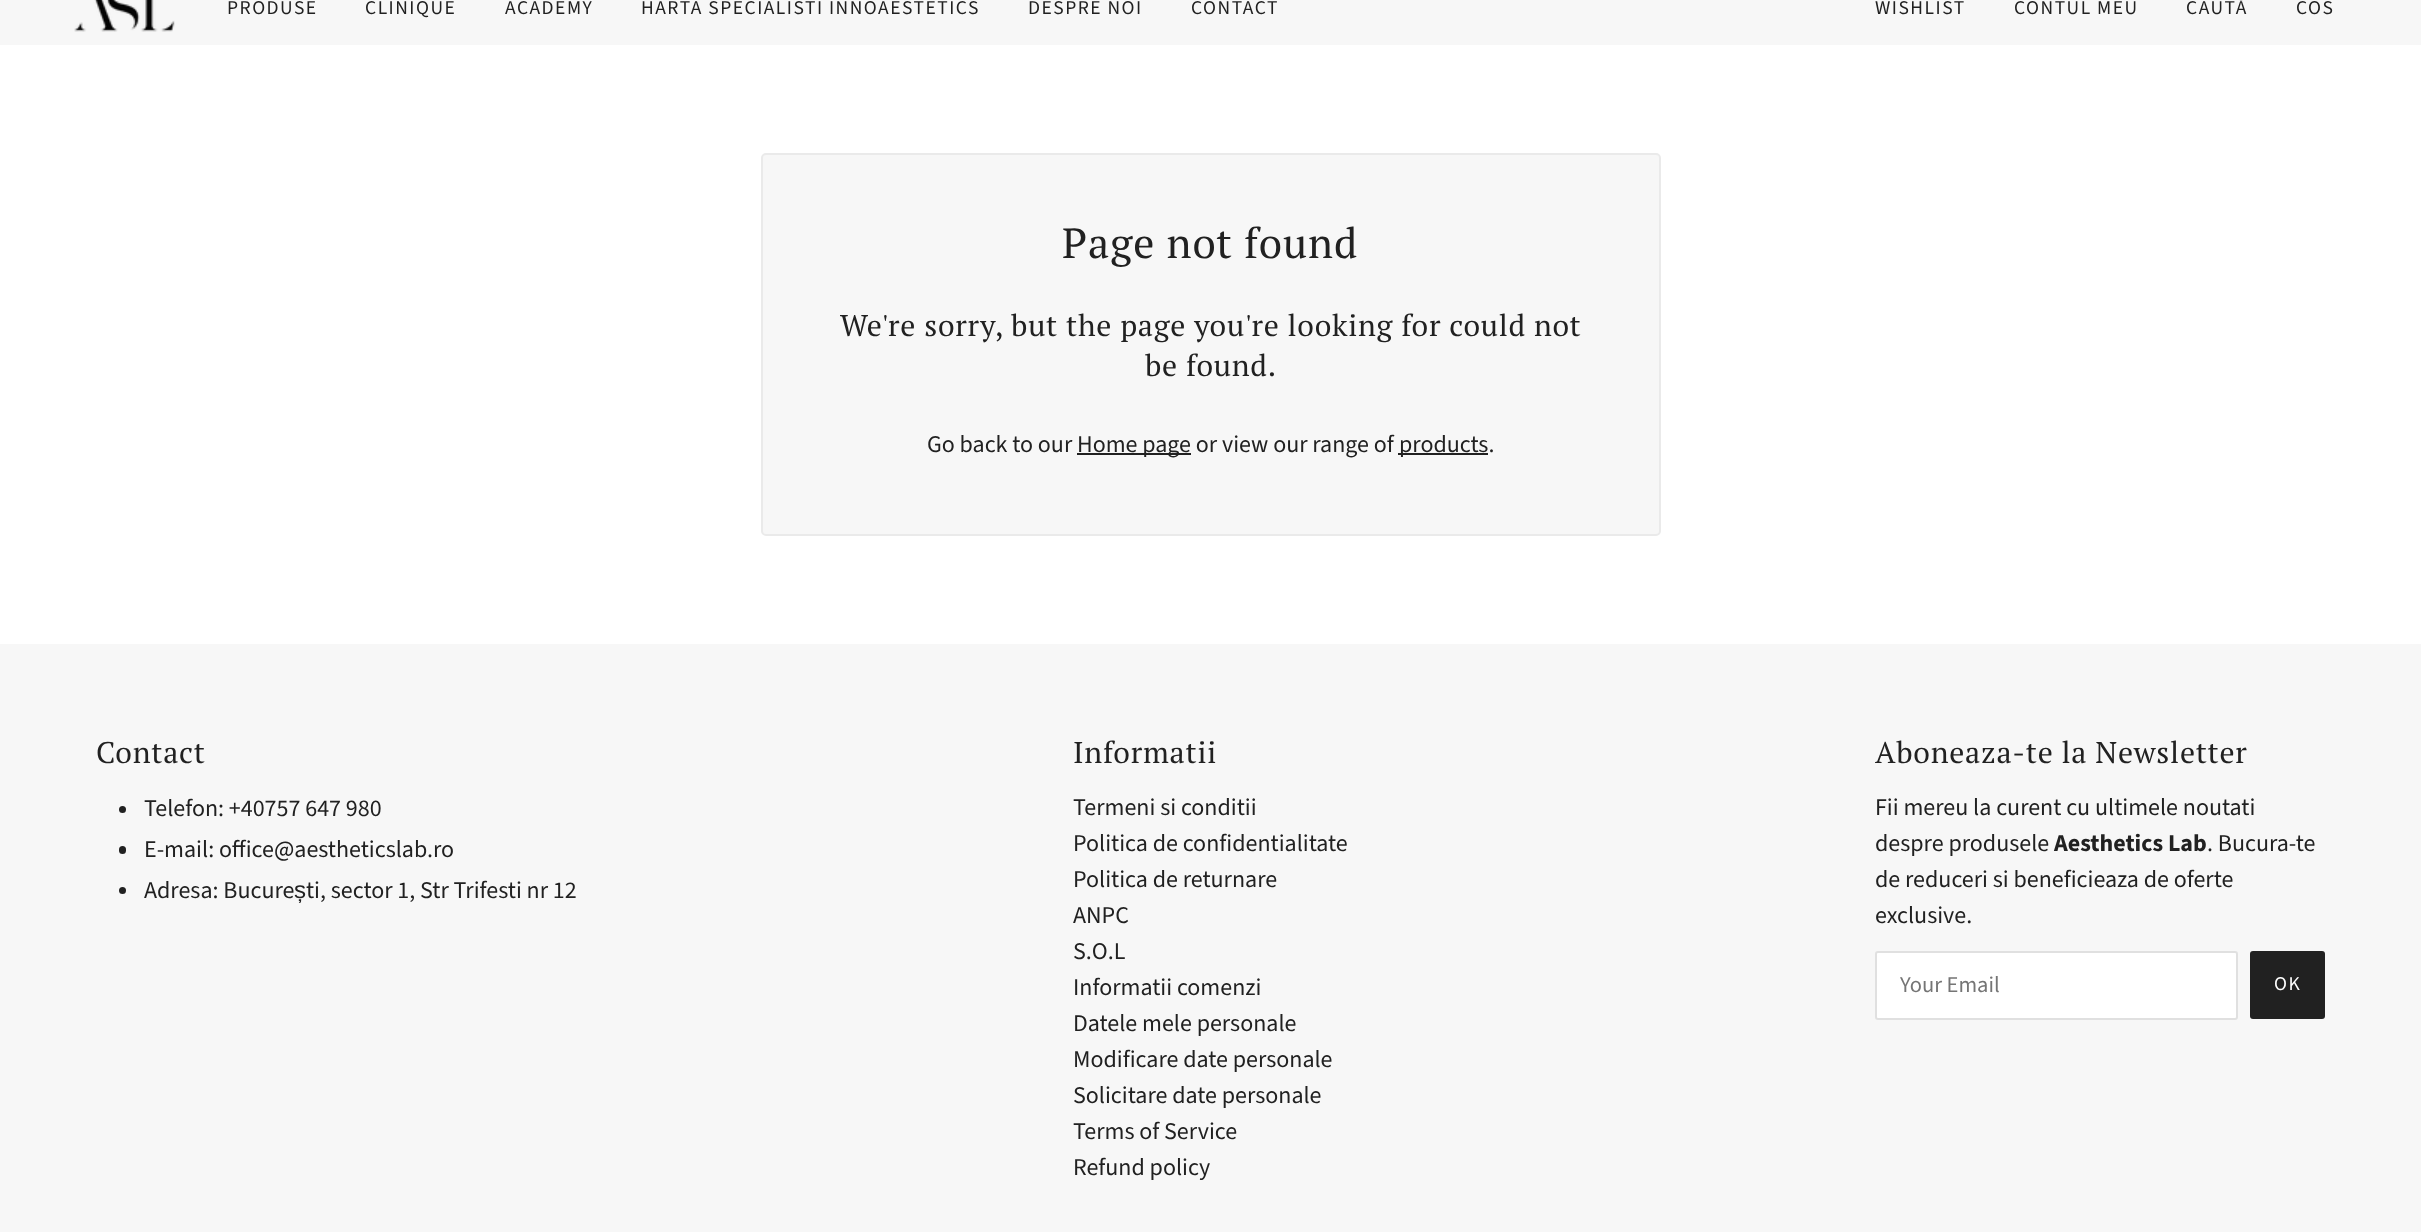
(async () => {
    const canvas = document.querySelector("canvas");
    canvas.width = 2421;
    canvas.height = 1232;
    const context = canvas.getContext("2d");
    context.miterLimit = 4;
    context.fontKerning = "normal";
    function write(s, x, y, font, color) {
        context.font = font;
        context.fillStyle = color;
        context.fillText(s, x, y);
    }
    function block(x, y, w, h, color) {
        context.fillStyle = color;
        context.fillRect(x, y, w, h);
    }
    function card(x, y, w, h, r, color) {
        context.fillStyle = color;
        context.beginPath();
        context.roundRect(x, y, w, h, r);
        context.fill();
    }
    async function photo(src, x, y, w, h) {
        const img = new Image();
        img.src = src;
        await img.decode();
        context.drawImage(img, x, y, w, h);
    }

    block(0, 0, 2421, 1232, "rgb(255, 255, 255)");
    block(0, 0, 2421, 45, "rgb(247, 247, 247)");
    await photo("media/1.png", 74, 0, 101, 32);
    context.letterSpacing = "1.5px";
    write("PRODUSE", 227, 14, "19.5px Source Sans Pro", "rgb(33, 33, 33)");
    write("CLINIQUE", 365, 14, "19.5px Source Sans Pro", "rgb(33, 33, 33)");
    write("ACADEMY", 505, 14, "19.5px Source Sans Pro", "rgb(33, 33, 33)");
    write("HARTA SPECIALISTI INNOAESTETICS", 641, 14, "19.5px Source Sans Pro", "rgb(33, 33, 33)");
    write("DESPRE NOI", 1028, 14, "19.5px Source Sans Pro", "rgb(33, 33, 33)");
    write("CONTACT", 1191, 14, "19.5px Source Sans Pro", "rgb(33, 33, 33)");
    write("WISHLIST", 1875, 14, "19.5px Source Sans Pro", "rgb(33, 33, 33)");
    write("CONTUL MEU", 2014, 14, "19.5px Source Sans Pro", "rgb(33, 33, 33)");
    write("CAUTĂ", 2186, 14, "19.5px Source Sans Pro", "rgb(33, 33, 33)");
    write("COS", 2296, 14, "19.5px Source Sans Pro", "rgb(33, 33, 33)");
    context.fillStyle = "rgb(247, 247, 247)";
    context.beginPath();
    context.roundRect(762, 154, 898, 381, 4);
    context.fill();
    context.strokeStyle = "rgb(234, 234, 234)";
    context.lineWidth = 2;
    context.stroke();
    context.letterSpacing = "1px";
    write("Page not found", 1062, 258, "42px PT Serif", "rgb(33, 33, 33)");
    context.letterSpacing = "0.75px";
    write("We're sorry, but the page you're looking for could not", 840, 336, "30px PT Serif", "rgb(33, 33, 33)");
    write("be found.", 1145, 376, "30px PT Serif", "rgb(33, 33, 33)");
    context.letterSpacing = "0px";
    write("Go back to our", 927, 452, "24px Source Sans Pro", "rgb(33, 33, 33)");
    block(1077, 453, 114, 2, "rgb(33, 33, 33)");
    write("Home page or view our range of", 1077, 452, "24px Source Sans Pro", "rgb(33, 33, 33)");
    block(1398, 453, 90, 2, "rgb(33, 33, 33)");
    write("products.", 1399, 452, "24px Source Sans Pro", "rgb(33, 33, 33)");
    block(0, 644, 2421, 588, "rgb(247, 247, 247)");
    context.letterSpacing = "0.75px";
    write("Contact", 96, 763, "30px PT Serif", "rgb(33, 33, 33)");
    context.beginPath();
    context.arc(122.5, 809.5, 3.5, 0, Math.PI * 2);
    context.fill();
    context.letterSpacing = "0px";
    write("Telefon: +40757 647 980", 144, 816, "24px Source Sans Pro", "rgb(33, 33, 33)");
    card(119, 846, 7, 8, 3.5, "rgb(33, 33, 33)");
    write("E-mail: office@aestheticslab.ro", 144, 857, "24px Source Sans Pro", "rgb(33, 33, 33)");
    context.beginPath();
    context.arc(122.5, 890.5, 3.5, 0, Math.PI * 2);
    context.fill();
    write("Adresa: Bucure", 144, 898, "24px Source Sans Pro", "rgb(33, 33, 33)");
    write("ș", 294, 898, "24px Liberation Sans", "rgb(33, 33, 33)");
    write("ti, sector 1, Str Trifesti nr 12", 306, 898, "24px Source Sans Pro", "rgb(33, 33, 33)");
    context.letterSpacing = "0.75px";
    write("Informatii", 1073, 763, "30px PT Serif", "rgb(33, 33, 33)");
    context.letterSpacing = "0px";
    write("Termeni si conditii", 1073, 815, "24px Source Sans Pro", "rgb(33, 33, 33)");
    write("Politica de confidentialitate", 1073, 851, "24px Source Sans Pro", "rgb(33, 33, 33)");
    write("Politica de returnare", 1073, 887, "24px Source Sans Pro", "rgb(33, 33, 33)");
    write("ANPC", 1073, 923, "24px Source Sans Pro", "rgb(33, 33, 33)");
    write("S.O.L", 1073, 959, "24px Source Sans Pro", "rgb(33, 33, 33)");
    write("Informatii comenzi", 1073, 995, "24px Source Sans Pro", "rgb(33, 33, 33)");
    write("Datele mele personale", 1073, 1031, "24px Source Sans Pro", "rgb(33, 33, 33)");
    write("Modificare date personale", 1073, 1067, "24px Source Sans Pro", "rgb(33, 33, 33)");
    write("Solicitare date personale", 1073, 1103, "24px Source Sans Pro", "rgb(33, 33, 33)");
    write("Terms of Service", 1073, 1139, "24px Source Sans Pro", "rgb(33, 33, 33)");
    write("Refund policy", 1073, 1175, "24px Source Sans Pro", "rgb(33, 33, 33)");
    context.letterSpacing = "0.75px";
    write("Aboneaza-te la Newsletter", 1875, 763, "30px PT Serif", "rgb(33, 33, 33)");
    context.letterSpacing = "0px";
    write("Fii mereu la curent cu ultimele noutati", 1875, 815, "24px Source Sans Pro", "rgb(33, 33, 33)");
    write("despre produsele", 1875, 851, "24px Source Sans Pro", "rgb(33, 33, 33)");
    write("Aesthetics Lab", 2054, 851, "bold 24px Source Sans Pro", "rgb(33, 33, 33)");
    write(". Bucura-te", 2207, 851, "24px Source Sans Pro", "rgb(33, 33, 33)");
    write("de reduceri si beneficieaza de oferte", 1875, 887, "24px Source Sans Pro", "rgb(33, 33, 33)");
    write("exclusive.", 1875, 923, "24px Source Sans Pro", "rgb(33, 33, 33)");
    context.fillStyle = "rgb(255, 255, 255)";
    context.beginPath();
    context.roundRect(1876, 952, 361, 67, 2);
    context.fill();
    context.strokeStyle = "rgb(224, 224, 224)";
    context.stroke();
    write("Your Email", 1900, 992, "22.5px Source Sans Pro", "rgb(117, 117, 117)");
    card(2250, 951, 75, 68, 3, "rgb(33, 33, 33)");
    context.letterSpacing = "1.5px";
    write("OK", 2274, 990, "19.5px Source Sans Pro", "rgb(255, 255, 255)");
})();
